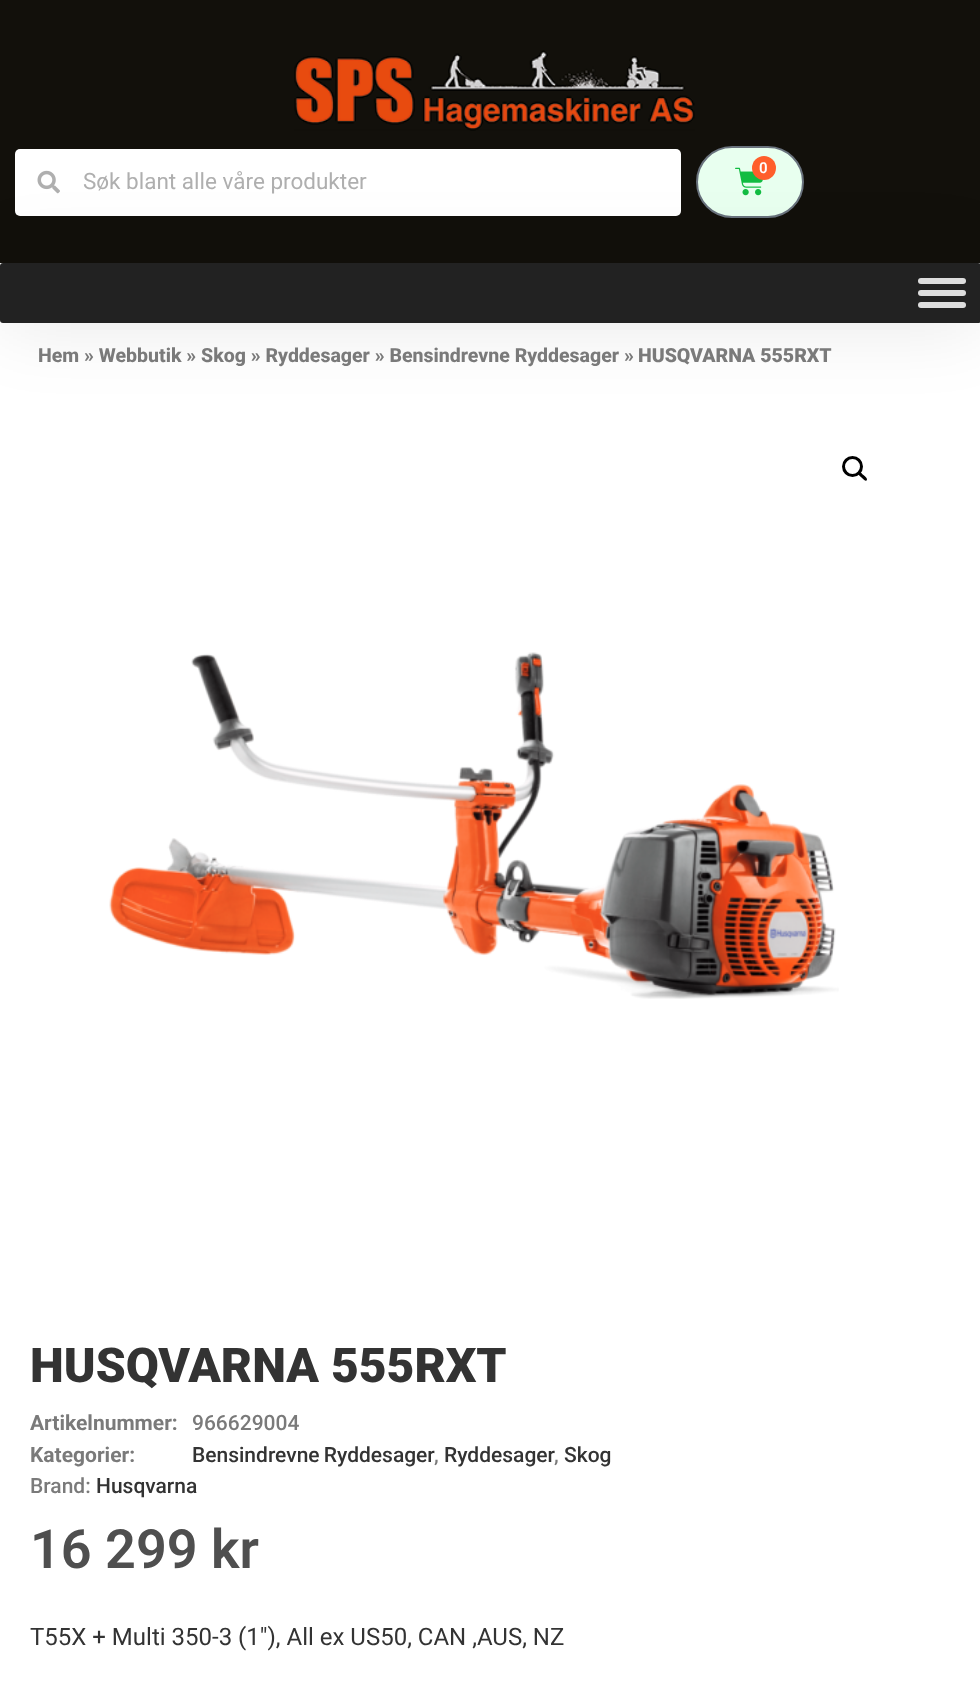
(async () => {
    const canvas = document.querySelector("canvas");
    canvas.width = 980;
    canvas.height = 1705;
    const context = canvas.getContext("2d");
    context.miterLimit = 4;
    context.fontKerning = "normal";
    function write(s, x, y, font, color) {
        context.font = font;
        context.fillStyle = color;
        context.fillText(s, x, y);
    }
    function block(x, y, w, h, color) {
        context.fillStyle = color;
        context.fillRect(x, y, w, h);
    }
    function card(x, y, w, h, r, color) {
        context.fillStyle = color;
        context.beginPath();
        context.roundRect(x, y, w, h, r);
        context.fill();
    }
    async function photo(src, x, y, w, h) {
        const img = new Image();
        img.src = src;
        await img.decode();
        context.drawImage(img, x, y, w, h);
    }

    block(0, 0, 980, 1705, "rgb(255, 255, 255)");
    block(0, 0, 980, 263, "rgb(18, 16, 11)");
    context.fillStyle = "rgb(232, 255, 239)";
    context.beginPath();
    context.roundRect(697, 147, 106, 70, 35);
    context.fill();
    context.strokeStyle = "rgb(105, 114, 125)";
    context.lineWidth = 2;
    context.stroke();
    await photo("media/2.png", 735, 167, 28, 29);
    context.fillStyle = "rgb(255, 94, 43)";
    context.beginPath();
    context.arc(764, 168, 12, 0, Math.PI * 2);
    context.fill();
    card(15, 149, 666, 67, 5, "rgb(255, 255, 255)");
    await photo("media/3.png", 37, 170, 23, 24);
    context.fillStyle = "rgba(0, 0, 0, 0.1)";
    context.filter = "blur(37.5px)";
    context.beginPath();
    context.rect(0, 263, 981, 60);
    context.fill();
    context.filter = "none";
    block(0, 263, 980, 60, "rgb(255, 255, 255)");
    card(0, 263, 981, 60, 3, "rgb(34, 34, 34)");
    card(918, 278, 48, 6, 3, "rgb(221, 221, 221)");
    card(918, 290, 48, 6, 3, "rgb(221, 221, 221)");
    card(918, 302, 48, 6, 3, "rgb(221, 221, 221)");
    await photo("media/1.png", 294, 50, 401, 81);
    write("0", 759, 173, "600 15px Roboto", "rgb(255, 255, 255)");
    write("Søk blant alle våre produkter", 83, 189, "22.5px Roboto", "rgb(175, 175, 175)");
    write("Hem » Webbutik » Skog » Ryddesager » Bensindrevne Ryddesager »", 38, 362, "800 19.5px Roboto", "rgb(122, 122, 122)");
    write("HUSQVARNA 555RXT", 638, 362, "900 19.5px Roboto", "rgb(122, 122, 122)");
    context.beginPath();
    context.arc(852.5, 466.5, 9, 0, Math.PI * 2);
    context.strokeStyle = "rgb(0, 0, 0)";
    context.lineWidth = 3;
    context.stroke();
    context.fillStyle = "rgb(0, 0, 0)";
    context.beginPath();
    context.moveTo(858.5, 472);
    context.bezierCurveTo(860, 470.5, 862.5, 474.5, 863.5, 475);
    context.bezierCurveTo(864.5, 476, 868.5, 479, 866.5, 480.5);
    context.bezierCurveTo(865, 482, 862.5, 478, 861.5, 477.5);
    context.bezierCurveTo(860.5, 476.5, 856.5, 473.5, 858.5, 472);
    context.closePath();
    context.fill();
    await photo("media/4.png", 109, 652, 730, 347);
    write("HUSQVARNA 555RXT", 30, 1382, "900 48px Roboto", "rgb(51, 51, 51)");
    write("Artikelnummer:", 30, 1430, "bold 21px Roboto", "rgb(122, 122, 122)");
    write("966629004", 192, 1430, "500 21px Roboto", "rgb(122, 122, 122)");
    write("Kategorier:", 30, 1462, "bold 21px Roboto", "rgb(122, 122, 122)");
    context.wordSpacing = "-1px";
    write("Bensindrevne Ryddesager", 192, 1462, "500 21px Roboto", "rgb(51, 51, 51)");
    context.wordSpacing = "0px";
    write(",", 434, 1462, "500 21px Roboto", "rgb(122, 122, 122)");
    write("Ryddesager", 444, 1462, "500 21px Roboto", "rgb(51, 51, 51)");
    write(",", 554, 1462, "500 21px Roboto", "rgb(122, 122, 122)");
    write("Skog", 564, 1462, "500 21px Roboto", "rgb(51, 51, 51)");
    write("Brand:", 30, 1493, "500 21px Roboto", "rgb(122, 122, 122)");
    write("Husqvarna", 96, 1493, "500 21px Roboto", "rgb(51, 51, 51)");
    write("16 299 kr", 30, 1568, "600 54px Roboto", "rgb(79, 79, 79)");
    write("T55X + Multi 350-3 (1″), All ex US50, CAN ,AUS, NZ", 30, 1645, "24px Roboto", "rgb(51, 51, 51)");
})();
